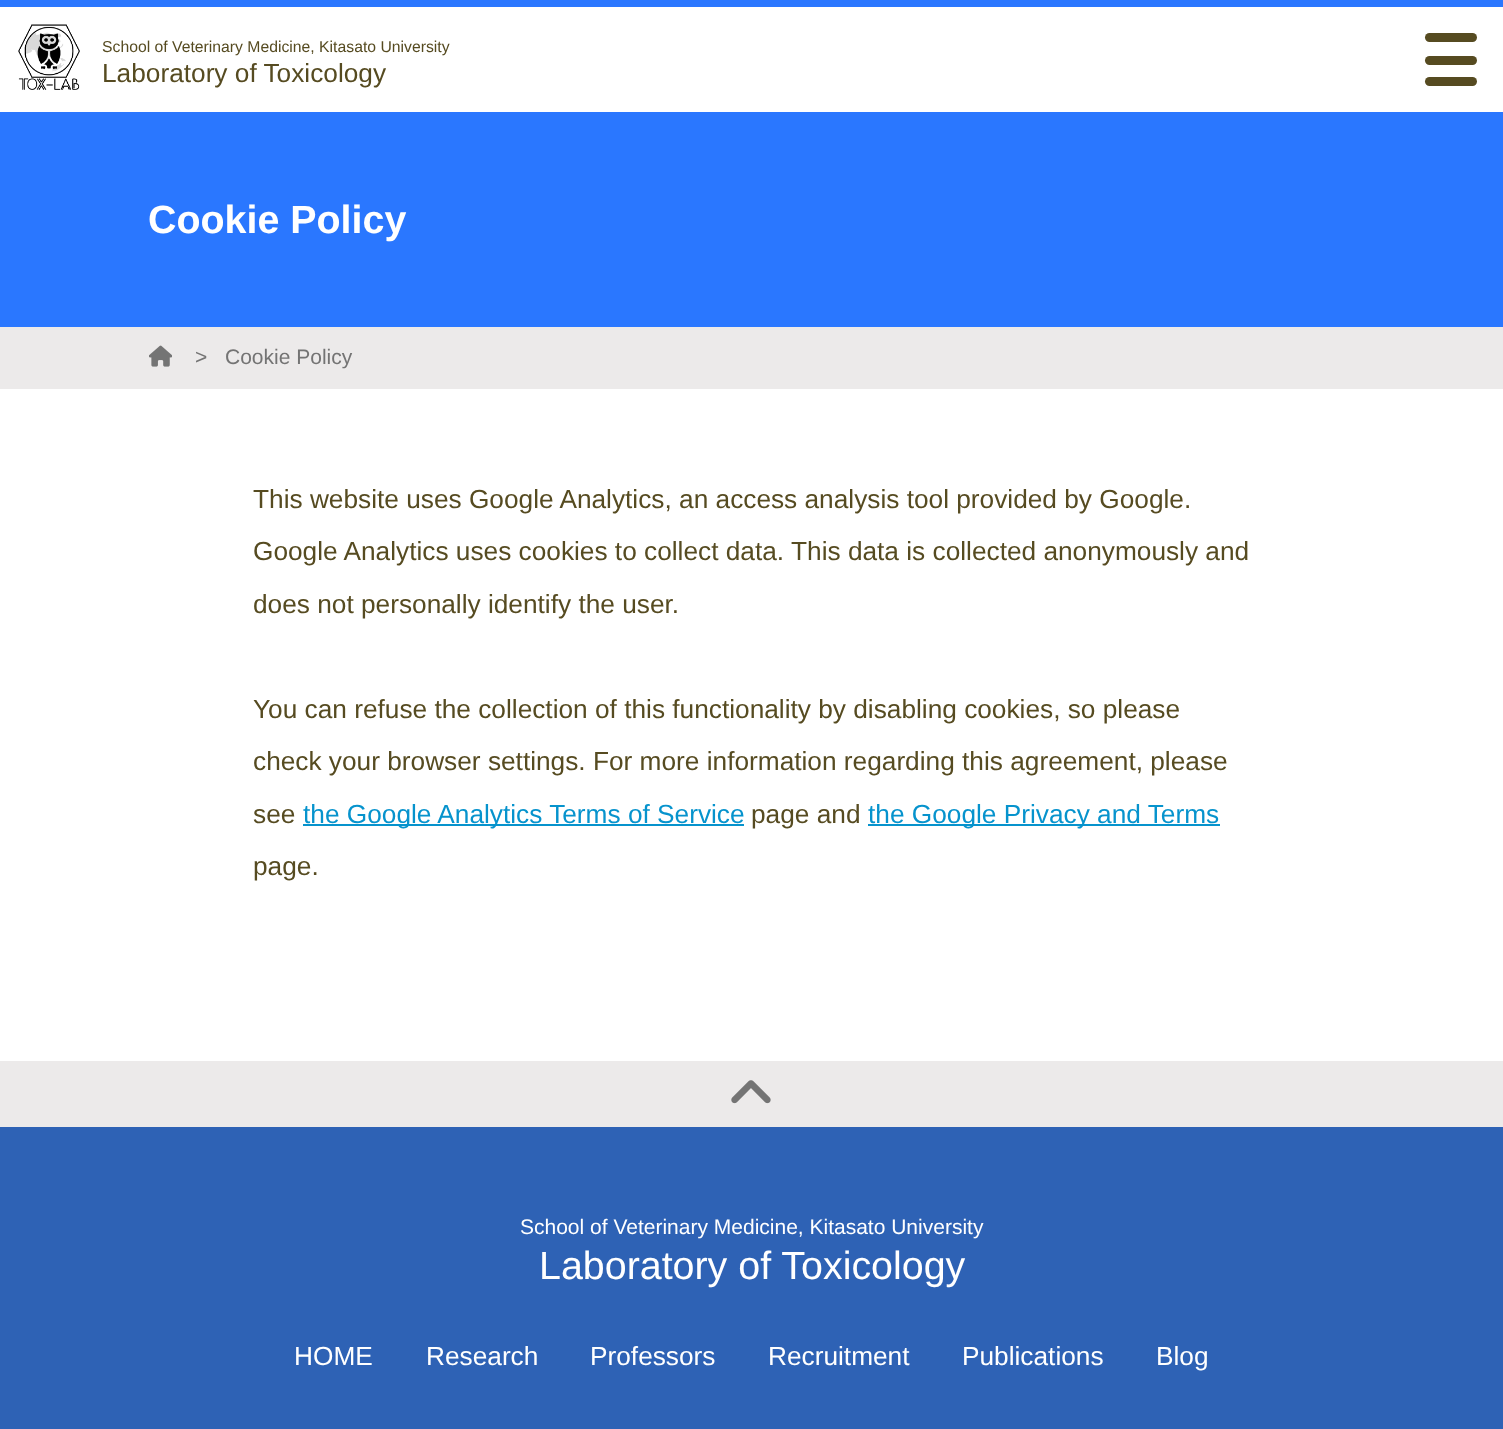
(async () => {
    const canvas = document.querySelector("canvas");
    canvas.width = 1503;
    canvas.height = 1429;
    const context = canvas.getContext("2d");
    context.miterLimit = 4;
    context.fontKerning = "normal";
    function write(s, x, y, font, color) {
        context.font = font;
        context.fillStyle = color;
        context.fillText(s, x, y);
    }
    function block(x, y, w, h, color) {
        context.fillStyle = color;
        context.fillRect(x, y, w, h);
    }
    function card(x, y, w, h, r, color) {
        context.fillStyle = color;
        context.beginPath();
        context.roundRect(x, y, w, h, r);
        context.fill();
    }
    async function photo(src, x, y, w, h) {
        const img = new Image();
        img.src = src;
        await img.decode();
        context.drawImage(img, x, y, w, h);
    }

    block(0, 0, 1503, 1429, "rgb(255, 255, 255)");
    block(0, 0, 1503, 7, "rgb(42, 119, 255)");
    await photo("media/1.png", 18, 24, 62, 66);
    write("School of Veterinary Medicine, Kitasato University", 102, 52, "15.75px Liberation Sans", "rgb(86, 75, 33)");
    write("Laboratory of Toxicology", 102, 82, "26.25px Liberation Sans", "rgb(86, 75, 33)");
    card(1425, 33, 52, 9, 4.5, "rgb(86, 75, 33)");
    card(1425, 56, 52, 9, 4.5, "rgb(86, 75, 33)");
    card(1425, 77, 52, 9, 4.5, "rgb(86, 75, 33)");
    block(0, 112, 1503, 215, "rgb(42, 119, 255)");
    write("Cookie Policy", 148, 233, "bold 39.4px Liberation Sans", "rgb(255, 255, 255)");
    block(0, 327, 1503, 62, "rgb(236, 234, 234)");
    await photo("media/2.png", 149, 345, 23, 22);
    write(">", 195, 364, "21px Liberation Sans", "rgb(116, 116, 116)");
    write("Cookie Policy", 225, 364, "21px Liberation Sans", "rgb(116, 116, 116)");
    write("This website uses Google Analytics, an access analysis tool provided by Google.", 253, 508, "26.25px Liberation Sans", "rgb(86, 75, 33)");
    write("Google Analytics uses cookies to collect data.", 253, 560, "26.25px Liberation Sans", "rgb(86, 75, 33)");
    write("This data is collected anonymously and", 791, 560, "26.25px Liberation Sans", "rgb(86, 75, 33)");
    write("does not personally identify the user.", 253, 613, "26.25px Liberation Sans", "rgb(86, 75, 33)");
    write("You can refuse the collection of this functionality by disabling cookies, so please", 253, 718, "26.25px Liberation Sans", "rgb(86, 75, 33)");
    write("check your browser settings. For more information regarding this agreement, please", 253, 770, "26.25px Liberation Sans", "rgb(86, 75, 33)");
    write("see", 253, 823, "26.25px Liberation Sans", "rgb(86, 75, 33)");
    block(303, 824, 441, 2, "rgb(6, 147, 205)");
    write("the Google Analytics Terms of Service", 303, 823, "26.25px Liberation Sans", "rgb(6, 147, 205)");
    write("page and", 751, 823, "26.25px Liberation Sans", "rgb(86, 75, 33)");
    block(868, 824, 352, 2, "rgb(6, 147, 205)");
    write("the Google Privacy and Terms", 868, 823, "26.25px Liberation Sans", "rgb(6, 147, 205)");
    write("page.", 253, 875, "26.25px Liberation Sans", "rgb(86, 75, 33)");
    block(0, 1061, 1503, 66, "rgb(236, 234, 234)");
    await photo("media/3.png", 731, 1080, 40, 24);
    block(0, 1127, 1503, 302, "rgb(46, 98, 181)");
    write("School of Veterinary Medicine, Kitasato University", 520, 1234, "21px Liberation Sans", "rgb(255, 255, 255)");
    write("Laboratory of Toxicology", 539, 1279, "39.4px Liberation Sans", "rgb(255, 255, 255)");
    write("HOME", 294, 1365, "26.25px Liberation Sans", "rgb(255, 255, 255)");
    write("Research", 426, 1365, "26.25px Liberation Sans", "rgb(255, 255, 255)");
    write("Professors", 590, 1365, "26.25px Liberation Sans", "rgb(255, 255, 255)");
    write("Recruitment", 768, 1365, "26.25px Liberation Sans", "rgb(255, 255, 255)");
    write("Publications", 962, 1365, "26.25px Liberation Sans", "rgb(255, 255, 255)");
    write("Blog", 1156, 1365, "26.25px Liberation Sans", "rgb(255, 255, 255)");
})();
